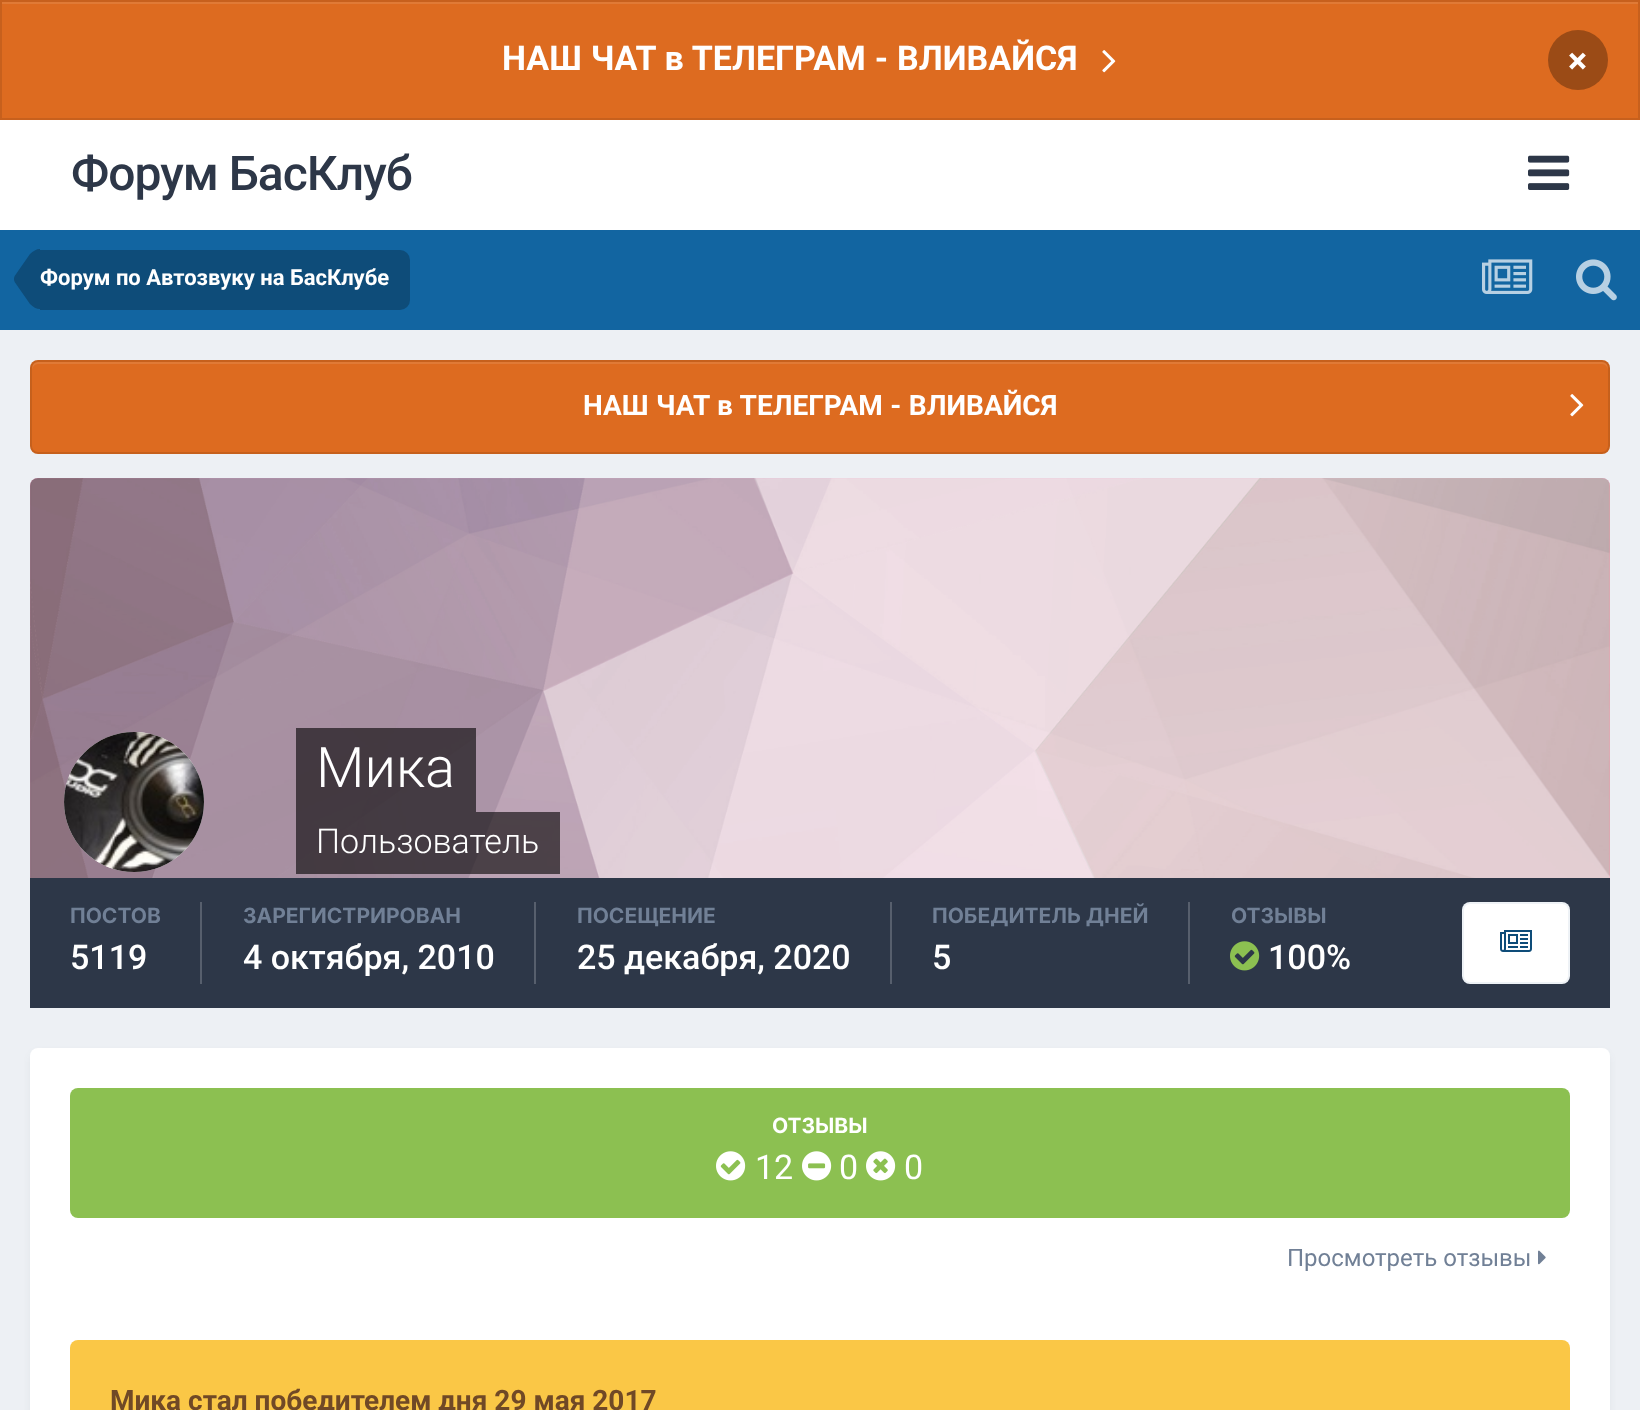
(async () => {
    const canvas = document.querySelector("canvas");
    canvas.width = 1640;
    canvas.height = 1410;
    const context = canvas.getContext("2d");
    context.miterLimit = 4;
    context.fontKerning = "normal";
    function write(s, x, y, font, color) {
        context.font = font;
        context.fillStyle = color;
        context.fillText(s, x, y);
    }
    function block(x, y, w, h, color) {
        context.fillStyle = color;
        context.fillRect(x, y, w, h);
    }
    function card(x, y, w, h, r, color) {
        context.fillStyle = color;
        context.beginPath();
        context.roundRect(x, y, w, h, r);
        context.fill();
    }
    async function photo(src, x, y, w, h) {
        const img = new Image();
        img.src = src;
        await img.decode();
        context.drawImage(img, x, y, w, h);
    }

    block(0, 0, 1640, 1410, "rgb(237, 240, 244)");
    block(2, 4, 1636, 114, "rgb(221, 107, 32)");
    block(2, 2, 1636, 2, "rgb(224, 122, 54)");
    context.strokeStyle = "rgb(199, 96, 29)";
    context.lineWidth = 2;
    context.strokeRect(1, 1, 1638, 118);
    context.wordSpacing = "0.5px";
    write("НАШ ЧАТ в ТЕЛЕГРАМ - ВЛИВАЙСЯ", 502, 70, "bold 34px Roboto", "rgb(255, 255, 255)");
    await photo("media/1.png", 1102, 50, 14, 23);
    context.fillStyle = "rgb(155, 75, 22)";
    context.beginPath();
    context.arc(1578, 60, 30, 0, Math.PI * 2);
    context.fill();
    context.wordSpacing = "0px";
    write("×", 1568, 73, "bold 36px Roboto", "rgb(255, 255, 255)");
    block(0, 120, 1640, 110, "rgb(255, 255, 255)");
    context.letterSpacing = "-1px";
    write("Форум БасКлуб", 71, 190, "500 48px Roboto", "rgb(45, 55, 72)");
    await photo("media/2.png", 1528, 155, 42, 35);
    block(0, 230, 1640, 100, "rgb(18, 101, 161)");
    context.fillStyle = "rgb(14, 76, 121)";
    context.beginPath();
    context.roundRect(40, 250, 370, 60, [0, 10, 10, 0]);
    context.fill();
    context.beginPath();
    context.moveTo(40, 279);
    context.lineTo(40, 309);
    context.bezierCurveTo(36.5, 309, 33, 307, 30, 304);
    context.lineTo(15, 282.5);
    context.bezierCurveTo(14.5, 281.5, 14, 280.5, 14, 279);
    context.closePath();
    context.moveTo(40, 279);
    context.lineTo(14, 279);
    context.bezierCurveTo(14, 277.5, 14.5, 276.5, 15, 275.5);
    context.lineTo(30, 254);
    context.bezierCurveTo(33, 251, 36.5, 249, 40, 249);
    context.closePath();
    context.fill();
    context.letterSpacing = "0px";
    write("Форум по Автозвуку на БасКлубе", 40, 285, "bold 22px Roboto", "rgb(255, 255, 255)");
    await photo("media/3.png", 1482, 259, 51, 35);
    await photo("media/4.png", 1576, 259, 41, 42);
    card(30, 360, 1580, 94, 8, "rgb(221, 107, 32)");
    context.fillStyle = "rgb(224, 122, 54)";
    context.beginPath();
    context.moveTo(38, 364);
    context.lineTo(1602, 364);
    context.bezierCurveTo(1605, 364, 1608, 367, 1608, 370);
    context.bezierCurveTo(1608, 366, 1607, 362, 1602, 362);
    context.lineTo(38, 362);
    context.bezierCurveTo(33, 362, 32, 366, 32, 370);
    context.bezierCurveTo(32, 367, 35, 364, 38, 364);
    context.closePath();
    context.fill();
    context.beginPath();
    context.roundRect(31, 361, 1578, 92, 7);
    context.strokeStyle = "rgba(0, 0, 0, 0.1)";
    context.stroke();
    context.wordSpacing = "0.5px";
    write("НАШ ЧАТ в ТЕЛЕГРАМ - ВЛИВАЙСЯ", 583, 415, "bold 28px Roboto", "rgb(255, 255, 255)");
    await photo("media/1.png", 1570, 394, 14, 23);
    context.fillStyle = "rgb(255, 153, 197)";
    context.beginPath();
    context.roundRect(30, 478, 1580, 400, [8, 8, 0, 0]);
    context.fill();
    await photo("media/5.png", 30, 478, 1580, 400);
    context.fillStyle = "rgb(255, 255, 255)";
    context.beginPath();
    context.arc(134, 802, 70, 0, Math.PI * 2);
    context.fill();
    await photo("media/6.png", 64, 732, 140, 140);
    block(296, 728, 180, 84, "rgba(0, 0, 0, 0.6)");
    context.wordSpacing = "0px";
    write("Мика", 316, 787, "300 56px Roboto", "rgb(255, 255, 255)");
    block(296, 812, 264, 62, "rgba(0, 0, 0, 0.6)");
    write("Пользователь", 316, 853, "300 34px Roboto", "rgb(255, 255, 255)");
    block(30, 878, 1580, 130, "rgb(45, 55, 72)");
    block(200, 902, 2, 82, "rgb(87, 95, 109)");
    write("ПОСТОВ", 70, 923, "bold 21px Inter", "rgb(113, 128, 150)");
    write("5119", 70, 969, "500 34px Roboto", "rgb(255, 255, 255)");
    block(534, 902, 2, 82, "rgb(87, 95, 109)");
    write("ЗАРЕГИСТРИРОВАН", 243, 923, "bold 21px Inter", "rgb(113, 128, 150)");
    write("4 октября, 2010", 243, 969, "500 34px Roboto", "rgb(255, 255, 255)");
    block(890, 902, 2, 82, "rgb(87, 95, 109)");
    write("ПОСЕЩЕНИЕ", 577, 923, "bold 21px Inter", "rgb(113, 128, 150)");
    write("25 декабря, 2020", 577, 969, "500 34px Roboto", "rgb(255, 255, 255)");
    block(1188, 902, 2, 82, "rgb(87, 95, 109)");
    write("ПОБЕДИТЕЛЬ ДНЕЙ", 932, 923, "bold 21px Inter", "rgb(113, 128, 150)");
    write("5", 932, 969, "500 34px Roboto", "rgb(255, 255, 255)");
    write("ОТЗЫВЫ", 1231, 923, "bold 21px Inter", "rgb(113, 128, 150)");
    await photo("media/7.png", 1230, 941, 30, 30);
    write("100%", 1268, 969, "500 34px Roboto", "rgb(255, 255, 255)");
    card(1462, 902, 108, 82, 8, "rgb(255, 255, 255)");
    context.beginPath();
    context.roundRect(1463, 903, 106, 80, 7);
    context.strokeStyle = "rgba(14, 76, 121, 0.07)";
    context.stroke();
    await photo("media/8.png", 1500, 930, 32, 22);
    context.fillStyle = "rgba(45, 55, 72, 0.1)";
    context.filter = "blur(4px)";
    context.beginPath();
    context.roundRect(32, 1054, 1576, 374, 6);
    context.fill();
    context.filter = "none";
    card(30, 1048, 1580, 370, 8, "rgb(255, 255, 255)");
    card(70, 1088, 1500, 130, 8, "rgb(140, 192, 81)");
    write("ОТЗЫВЫ", 772, 1133, "bold 21px Inter", "rgb(255, 255, 255)");
    await photo("media/9.png", 716, 1151, 30, 30);
    write("12", 755, 1179, "34px Roboto", "rgb(255, 255, 255)");
    await photo("media/10.png", 802, 1151, 30, 30);
    write("0", 839, 1179, "34px Roboto", "rgb(255, 255, 255)");
    await photo("media/11.png", 866, 1151, 30, 30);
    write("0", 904, 1179, "34px Roboto", "rgb(255, 255, 255)");
    write("Просмотреть отзывы", 1287, 1266, "24px Roboto", "rgb(113, 128, 150)");
    await photo("media/12.png", 1538, 1250, 8, 15);
    card(70, 1340, 1500, 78, 8, "rgb(250, 199, 70)");
    write("Мика стал победителем дня 29 мая 2017", 110, 1410, "bold 28px Roboto", "rgb(112, 73, 38)");
})();
